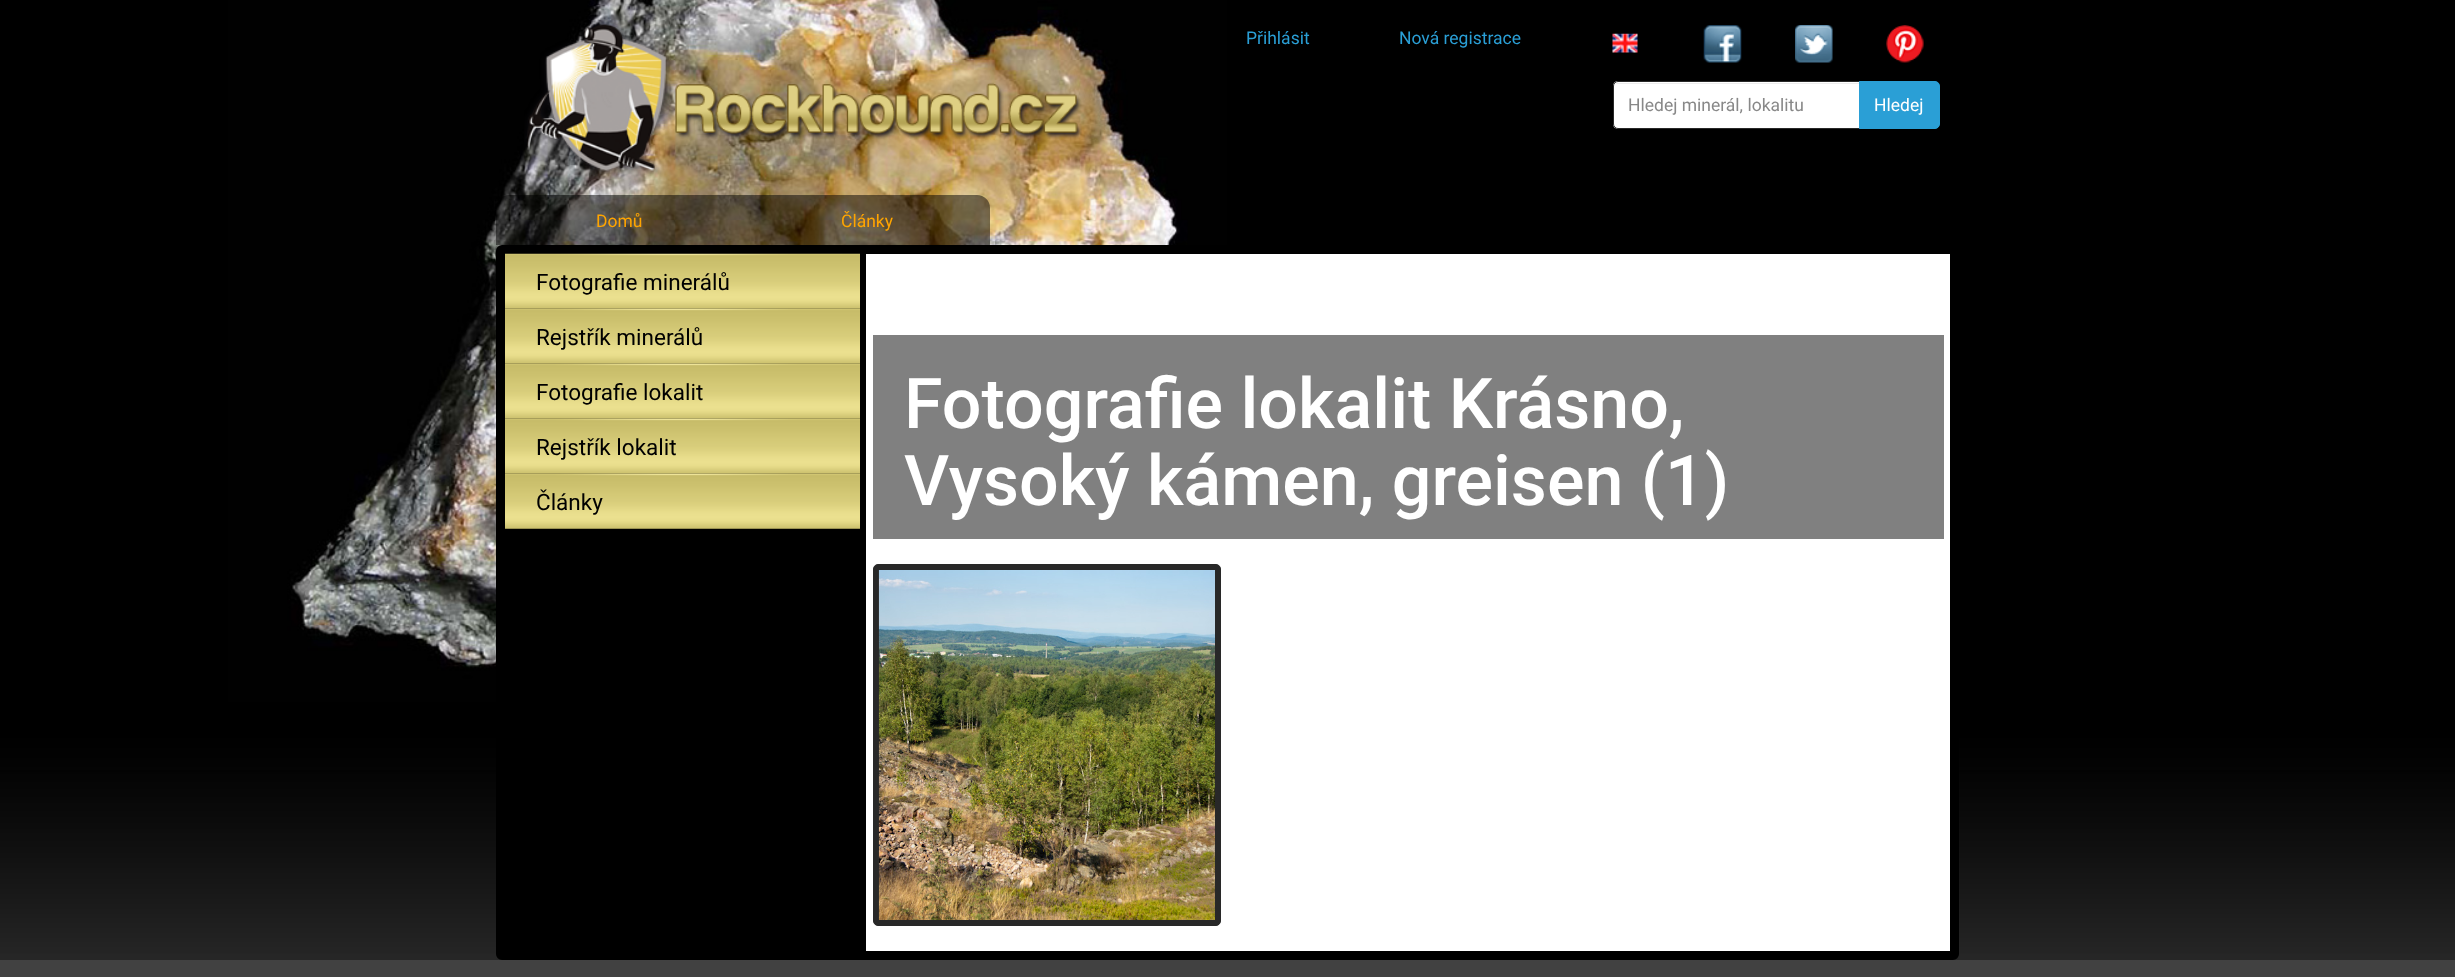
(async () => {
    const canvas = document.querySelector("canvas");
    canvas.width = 2455;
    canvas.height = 977;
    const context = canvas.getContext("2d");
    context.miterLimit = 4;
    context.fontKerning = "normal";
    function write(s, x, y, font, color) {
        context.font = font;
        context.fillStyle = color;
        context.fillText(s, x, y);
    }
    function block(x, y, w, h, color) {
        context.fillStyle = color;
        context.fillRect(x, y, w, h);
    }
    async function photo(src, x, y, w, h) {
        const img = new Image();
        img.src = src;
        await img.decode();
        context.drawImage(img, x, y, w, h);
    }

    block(0, 0, 2455, 977, "rgb(255, 255, 255)");
    await photo("media/1.png", 0, 0, 2455, 960);
    await photo("media/2.png", 524, 20, 558, 158);
    write("Přihlásit", 1246, 44, "17.5px Roboto", "rgb(42, 159, 214)");
    write("Nová registrace", 1399, 44, "17.5px Roboto", "rgb(42, 159, 214)");
    await photo("media/3.png", 1612, 33, 26, 20);
    await photo("media/4.png", 1703, 25, 39, 38);
    await photo("media/5.png", 1795, 25, 38, 38);
    await photo("media/6.png", 1886, 25, 38, 38);
    context.fillStyle = "rgb(255, 255, 255)";
    context.beginPath();
    context.roundRect(1613, 81, 247, 48, [5, 0, 0, 5]);
    context.fill();
    context.fillStyle = "rgb(236, 236, 236)";
    context.beginPath();
    context.moveTo(1618, 84);
    context.lineTo(1859, 84);
    context.lineTo(1859, 83);
    context.lineTo(1618, 83);
    context.bezierCurveTo(1616, 83, 1614, 85, 1614, 87);
    context.lineTo(1614, 88);
    context.bezierCurveTo(1614, 85, 1615, 84, 1618, 84);
    context.closePath();
    context.fill();
    context.beginPath();
    context.roundRect(1613.5, 81.5, 246, 47, [4.5, 0, 0, 4.5]);
    context.strokeStyle = "rgb(40, 40, 40)";
    context.stroke();
    write("Hledej minerál, lokalitu", 1628, 111, "17.5px Roboto", "rgb(136, 136, 136)");
    context.fillStyle = "rgb(42, 159, 214)";
    context.beginPath();
    context.roundRect(1859.5, 81.5, 80, 47, [0, 4.5, 4.5, 0]);
    context.fill();
    context.strokeStyle = "rgb(42, 159, 214)";
    context.stroke();
    write("Hledej", 1874, 111, "17.5px Roboto", "rgb(255, 255, 255)");
    context.fillStyle = "rgba(0, 0, 0, 0.5)";
    context.beginPath();
    context.roundRect(496, 195, 248, 50, [13, 0, 0, 0]);
    context.fill();
    write("Domů", 596, 227, "17.5px Roboto", "rgb(255, 165, 0)");
    context.fillStyle = "rgba(0, 0, 0, 0.5)";
    context.beginPath();
    context.roundRect(744, 195, 246, 50, [0, 13, 0, 0]);
    context.fill();
    write("Články", 841, 227, "17.5px Roboto", "rgb(255, 165, 0)");
    context.fillStyle = "rgb(0, 0, 0)";
    context.beginPath();
    context.roundRect(500.5, 249.5, 1454, 706, 1.5);
    context.fill();
    context.strokeStyle = "rgb(0, 0, 0)";
    context.lineWidth = 9;
    context.stroke();
    await photo("media/7.png", 505, 253, 355, 56);
    write("Fotografie minerálů", 536, 290, "22.5px Roboto", "rgb(0, 0, 0)");
    await photo("media/8.png", 505, 308, 355, 56);
    write("Rejstřík minerálů", 536, 345, "22.5px Roboto", "rgb(0, 0, 0)");
    await photo("media/8.png", 505, 363, 355, 56);
    write("Fotografie lokalit", 536, 400, "22.5px Roboto", "rgb(0, 0, 0)");
    await photo("media/8.png", 505, 418, 355, 56);
    write("Rejstřík lokalit", 536, 455, "22.5px Roboto", "rgb(0, 0, 0)");
    await photo("media/8.png", 505, 473, 355, 56);
    write("Články", 536, 510, "22.5px Roboto", "rgb(0, 0, 0)");
    block(866, 254, 1084, 697, "rgb(255, 255, 255)");
    block(873, 335, 1071, 204, "rgb(128, 128, 128)");
    write("Fotografie lokalit Krásno,", 904, 428, "500 70px Roboto", "rgb(255, 255, 255)");
    write("Vysoký kámen, greisen (1)", 904, 505, "500 70px Roboto", "rgb(255, 255, 255)");
    context.fillStyle = "rgb(40, 40, 40)";
    context.beginPath();
    context.roundRect(873.5, 564.5, 347, 361, 4.5);
    context.fill();
    context.strokeStyle = "rgb(40, 40, 40)";
    context.lineWidth = 1;
    context.stroke();
    await photo("media/9.png", 878, 570, 337, 350);
    block(0, 960, 2455, 17, "rgb(65, 65, 65)");
})();
